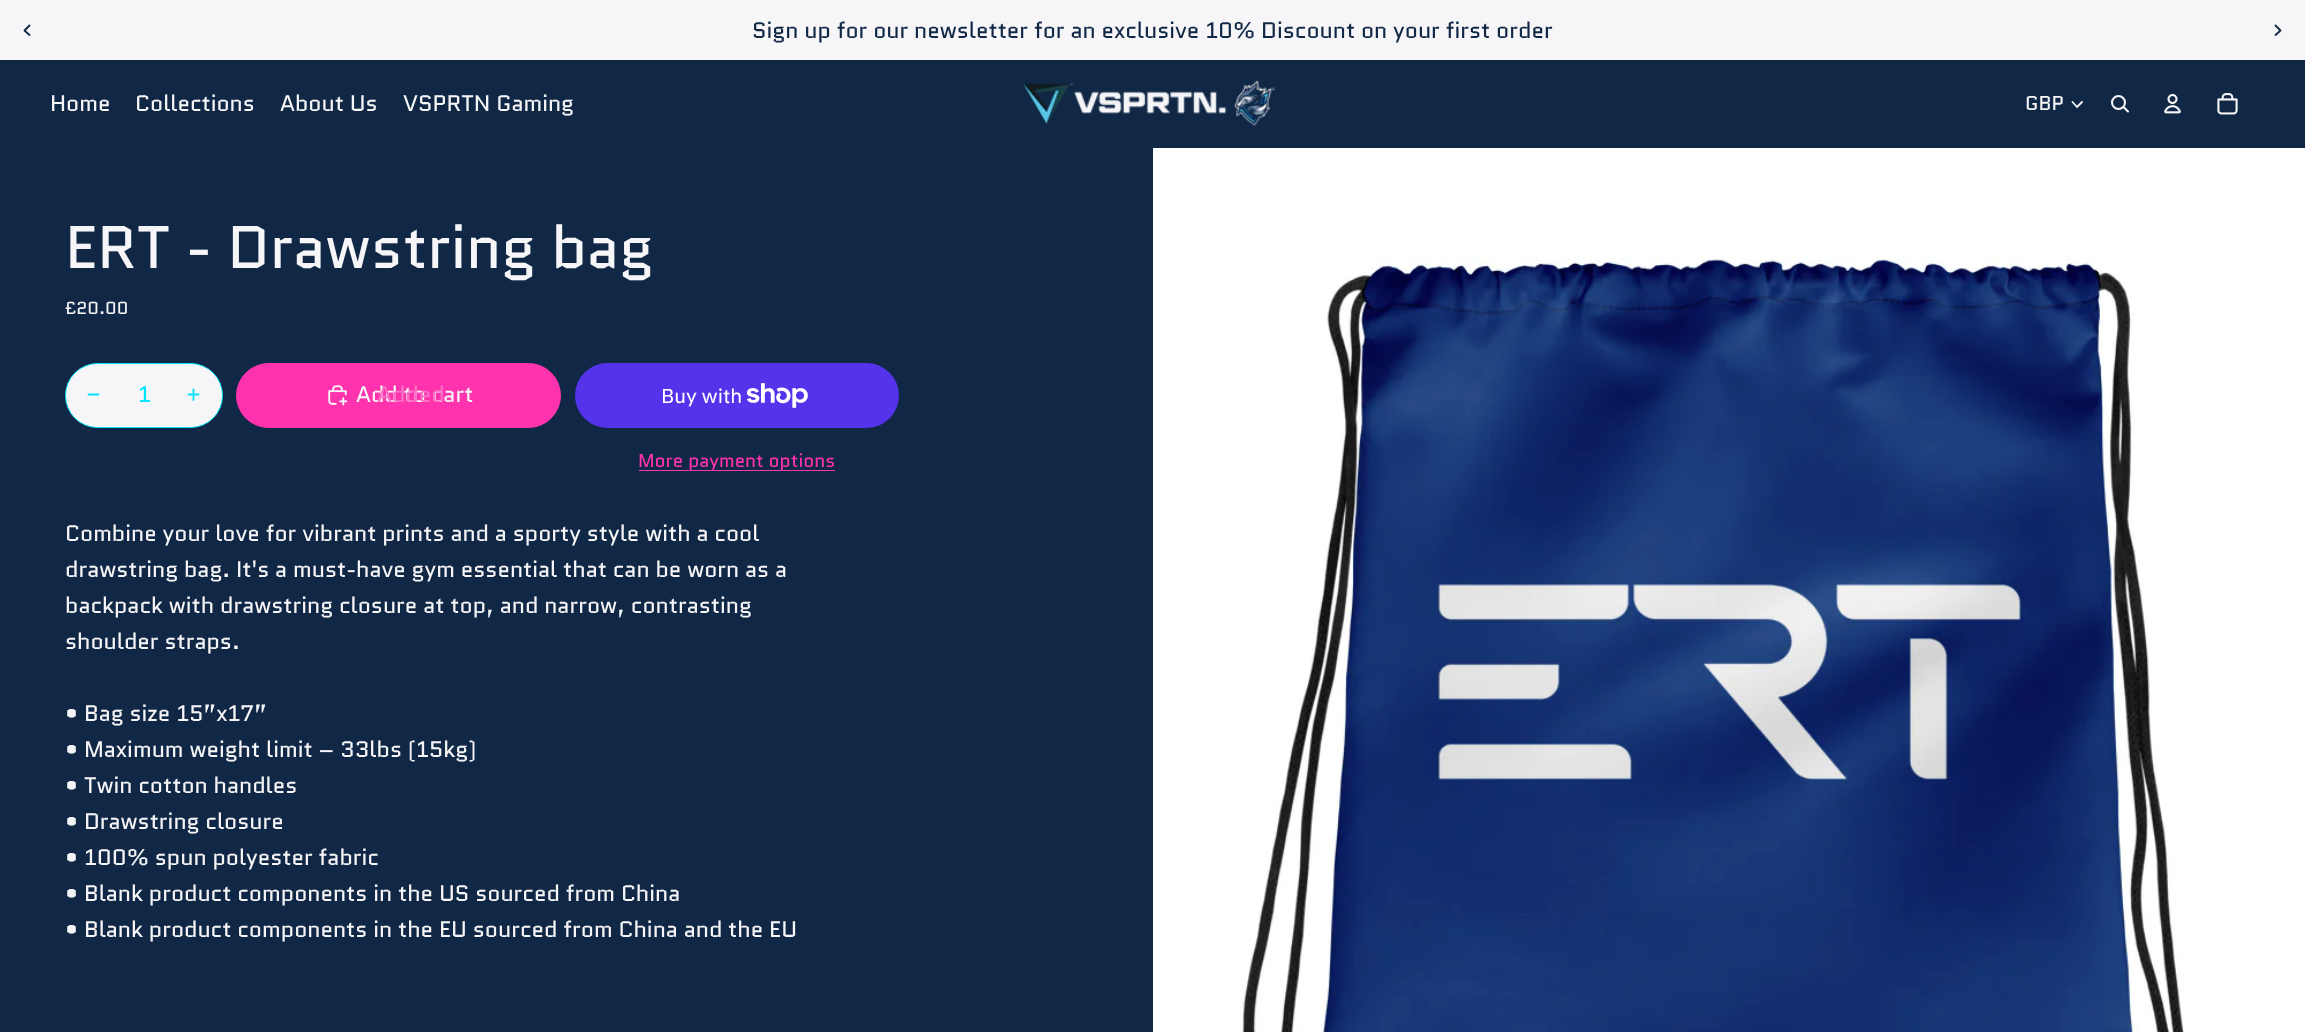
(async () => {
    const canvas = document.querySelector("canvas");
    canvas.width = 2305;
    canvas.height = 1032;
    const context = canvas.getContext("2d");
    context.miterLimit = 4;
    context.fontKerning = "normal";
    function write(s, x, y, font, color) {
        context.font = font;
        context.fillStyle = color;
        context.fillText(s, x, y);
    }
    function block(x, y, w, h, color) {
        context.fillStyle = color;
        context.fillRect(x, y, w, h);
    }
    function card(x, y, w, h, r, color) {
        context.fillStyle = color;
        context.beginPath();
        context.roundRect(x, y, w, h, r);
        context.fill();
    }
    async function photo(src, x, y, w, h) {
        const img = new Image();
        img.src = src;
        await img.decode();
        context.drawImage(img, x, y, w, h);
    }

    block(0, 0, 2305, 1032, "rgb(246, 245, 247)");
    write("Sign up for our newsletter for an exclusive 10% Discount on your first order", 752, 38, "22.5px Quantico", "rgb(16, 39, 69)");
    context.beginPath();
    context.moveTo(29.5, 25.5);
    context.lineTo(24.5, 30.5);
    context.lineTo(29.5, 35);
    context.strokeStyle = "rgb(16, 39, 69)";
    context.lineWidth = 1.8;
    context.lineCap = "round";
    context.lineJoin = "round";
    context.stroke();
    context.beginPath();
    context.moveTo(2275.5, 25.5);
    context.lineTo(2280.5, 30.5);
    context.lineTo(2275.5, 35);
    context.stroke();
    block(0, 60, 2305, 88, "rgb(16, 39, 69)");
    write("Home", 50, 111, "22.5px Quantico", "rgb(246, 245, 247)");
    write("Collections", 135, 111, "22.5px Quantico", "rgb(246, 245, 247)");
    write("About Us", 280, 111, "22.5px Quantico", "rgb(246, 245, 247)");
    write("VSPRTN Gaming", 403, 111, "22.5px Quantico", "rgb(246, 245, 247)");
    await photo("media/1.png", 1023, 80, 252, 47);
    write("GBP", 2025, 110, "20px Quantico", "rgb(246, 245, 247)");
    context.beginPath();
    context.moveTo(2082, 102);
    context.lineTo(2077, 107);
    context.lineTo(2072.5, 102);
    context.strokeStyle = "rgb(246, 245, 247)";
    context.stroke();
    context.beginPath();
    context.arc(2118.5, 102.5, 6.5, 0, Math.PI * 2);
    context.lineWidth = 2.1;
    context.stroke();
    context.beginPath();
    context.moveTo(2123.5, 107);
    context.lineTo(2128, 111.5);
    context.stroke();
    await photo("media/2.png", 2164, 93, 17, 21);
    await photo("media/3.png", 2217, 93, 21, 22);
    block(0, 148, 1153, 884, "rgb(16, 39, 69)");
    write("ERT - Drawstring bag", 65, 268, "60px Quantico", "rgb(246, 245, 247)");
    write("£20.00", 65, 314, "17.5px Quantico", "rgb(246, 245, 247)");
    context.beginPath();
    context.roundRect(65.5, 363.5, 157, 64, 32);
    context.fill();
    context.strokeStyle = "rgb(0, 230, 254)";
    context.lineWidth = 1;
    context.lineJoin = "miter";
    context.stroke();
    context.beginPath();
    context.moveTo(88.5, 394.5);
    context.lineTo(98.5, 394.5);
    context.lineWidth = 1.8;
    context.stroke();
    write("1", 138, 402, "22.5px Quantico", "rgb(0, 230, 254)");
    context.beginPath();
    context.moveTo(188.5, 394.5);
    context.lineTo(198.5, 394.5);
    context.moveTo(193.5, 389.5);
    context.lineTo(193.5, 400);
    context.stroke();
    context.fillStyle = "rgb(255, 51, 173)";
    context.beginPath();
    context.roundRect(236.5, 363.5, 324, 64, 32);
    context.fill();
    context.strokeStyle = "rgb(255, 51, 173)";
    context.lineWidth = 1;
    context.stroke();
    await photo("media/4.png", 328, 385, 20, 21);
    write("Add to cart", 356, 402, "22.5px Quantico", "rgb(246, 245, 247)");
    write("Added", 377, 402, "22.5px Quantico", "rgb(252, 113, 197)");
    card(575, 363, 324, 65, 32.5, "rgb(84, 51, 235)");
    write("Buy with", 661, 403, "20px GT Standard", "rgb(255, 255, 255)");
    await photo("media/5.png", 746, 383, 62, 25);
    block(639, 470, 196, 1, "rgb(255, 51, 173)");
    write("More payment options", 638, 467, "18.75px Quantico", "rgb(255, 51, 173)");
    write("Combine your love for vibrant prints and a sporty style with a cool", 65, 541, "22.5px Quantico", "rgb(246, 245, 247)");
    write("drawstring bag. It's a must-have gym essential that can be worn as a", 65, 577, "22.5px Quantico", "rgb(246, 245, 247)");
    write("backpack with drawstring closure at top, and narrow, contrasting", 65, 613, "22.5px Quantico", "rgb(246, 245, 247)");
    write("shoulder straps.", 65, 649, "22.5px Quantico", "rgb(246, 245, 247)");
    write("• Bag size 15”x17”", 65, 721, "22.5px Quantico", "rgb(246, 245, 247)");
    write("• Maximum weight limit – 33lbs (15kg)", 65, 757, "22.5px Quantico", "rgb(246, 245, 247)");
    write("• Twin cotton handles", 65, 793, "22.5px Quantico", "rgb(246, 245, 247)");
    write("• Drawstring closure", 65, 829, "22.5px Quantico", "rgb(246, 245, 247)");
    write("• 100% spun polyester fabric", 65, 865, "22.5px Quantico", "rgb(246, 245, 247)");
    write("• Blank product components in the US sourced from China", 65, 901, "22.5px Quantico", "rgb(246, 245, 247)");
    write("• Blank product components in the EU sourced from China and the EU", 65, 937, "22.5px Quantico", "rgb(246, 245, 247)");
    await photo("media/6.png", 1153, 148, 1152, 884);
})();
